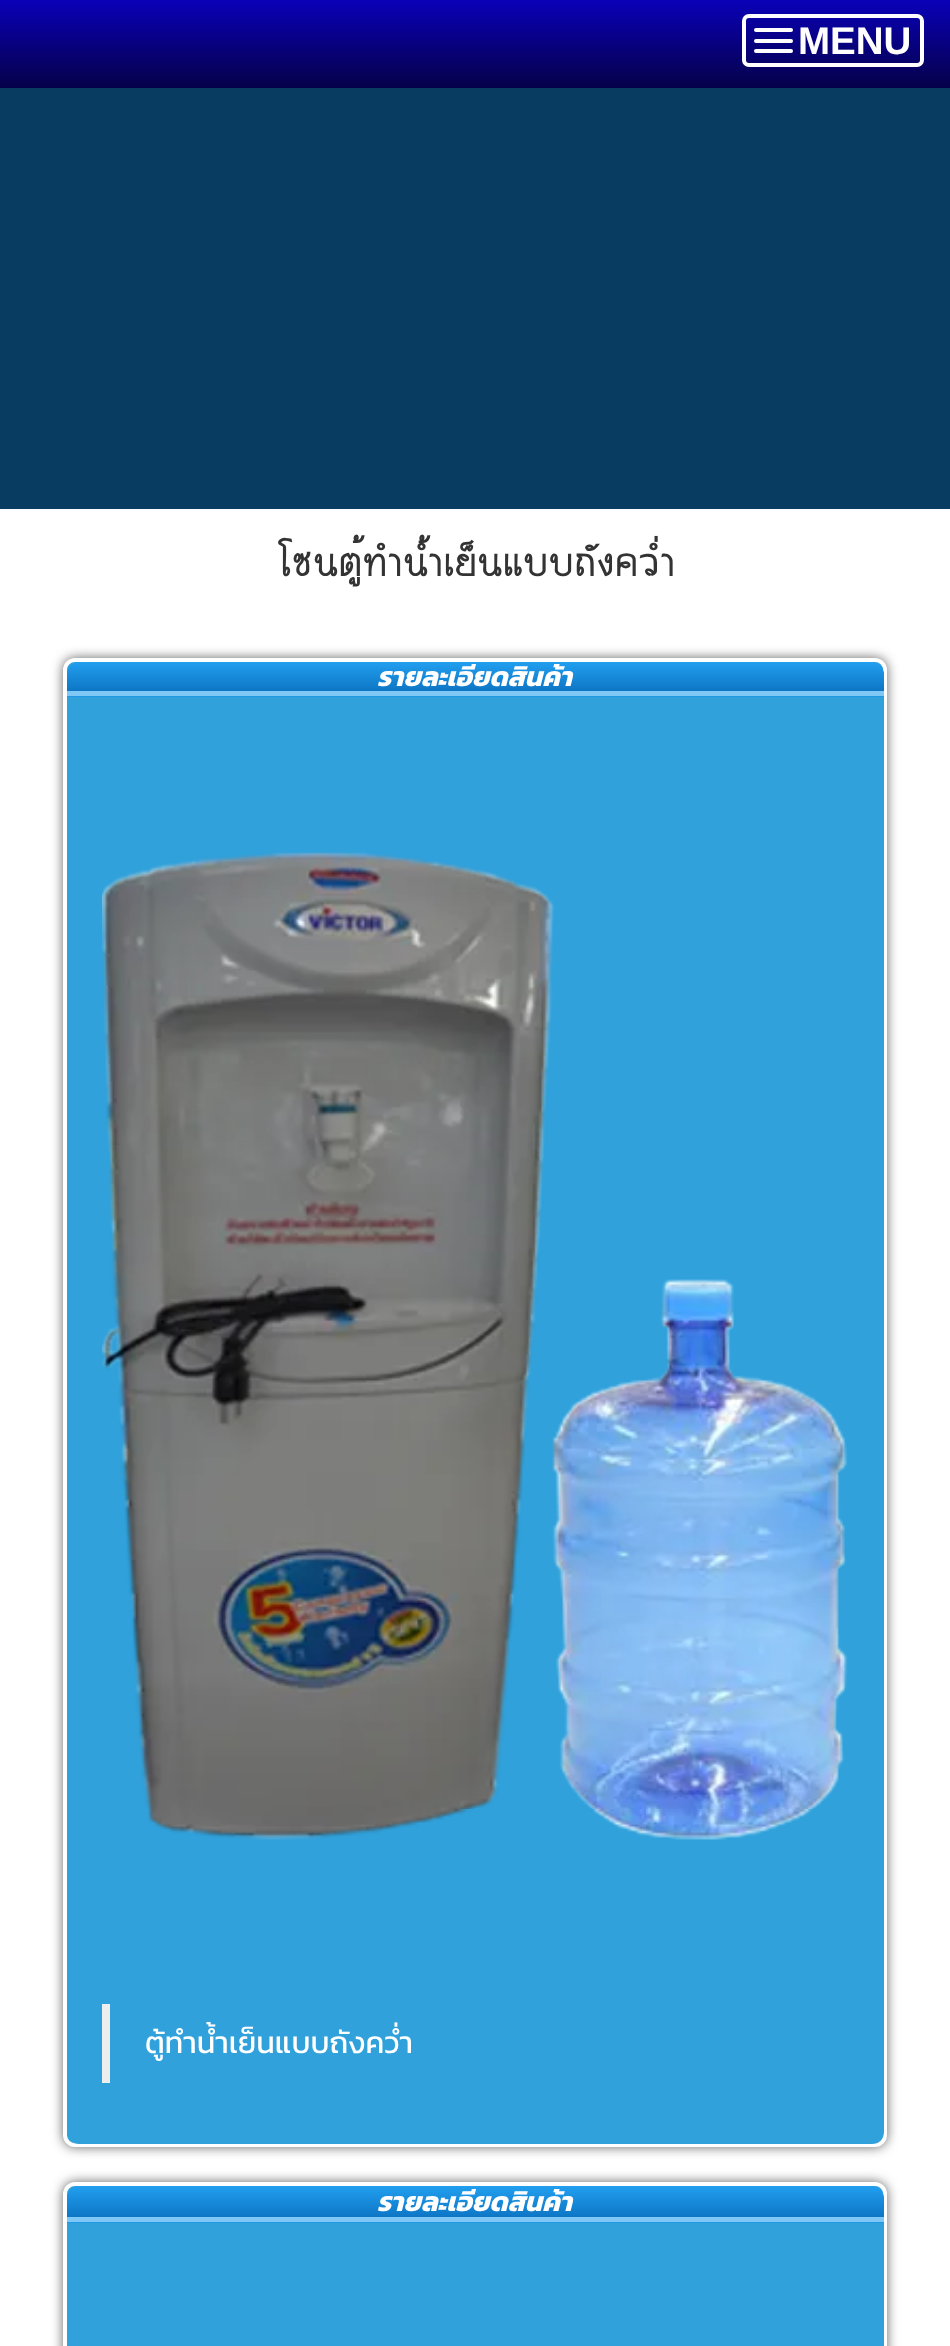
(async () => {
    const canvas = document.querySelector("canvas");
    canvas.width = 950;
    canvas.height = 2346;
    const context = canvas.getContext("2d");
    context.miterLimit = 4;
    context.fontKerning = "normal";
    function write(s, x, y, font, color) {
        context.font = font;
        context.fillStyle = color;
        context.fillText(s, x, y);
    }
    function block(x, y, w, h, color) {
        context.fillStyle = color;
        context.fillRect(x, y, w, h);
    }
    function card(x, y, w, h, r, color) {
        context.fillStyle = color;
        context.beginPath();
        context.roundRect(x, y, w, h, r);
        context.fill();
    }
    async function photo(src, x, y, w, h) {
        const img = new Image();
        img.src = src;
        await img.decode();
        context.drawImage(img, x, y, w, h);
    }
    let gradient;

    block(0, 0, 950, 2346, "rgb(255, 255, 255)");
    gradient = context.createLinearGradient(475, 0, 475, 88);
    gradient.addColorStop(0, "rgb(10, 1, 184)");
    gradient.addColorStop(1, "rgb(5, 1, 72)");
    context.fillStyle = gradient;
    context.fillRect(0, 0, 950, 88);
    context.beginPath();
    context.roundRect(744, 16, 178, 49, 5);
    context.strokeStyle = "rgb(255, 255, 255)";
    context.lineWidth = 4;
    context.stroke();
    card(754, 28, 39, 4, 2, "rgb(255, 255, 255)");
    card(754, 39, 39, 4, 2, "rgb(255, 255, 255)");
    card(754, 49, 39, 4, 2, "rgb(255, 255, 255)");
    write("MENU", 798, 54, "bold 38.5px Liberation Sans", "rgb(255, 255, 255)");
    block(0, 88, 950, 421, "rgb(8, 60, 96)");
    write("โซนตู้ทำนํ้าเย็นแบบถังควํ่า", 277, 576, "bold 52.5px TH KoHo", "rgb(51, 51, 51)");
    context.fillStyle = "rgba(50, 50, 50, 0.75)";
    context.filter = "blur(6px)";
    context.beginPath();
    context.roundRect(63, 658, 824, 1489, 12);
    context.fill();
    context.filter = "none";
    context.fillStyle = "rgb(48, 161, 219)";
    context.beginPath();
    context.roundRect(65, 660, 820, 1485, 10);
    context.fill();
    context.stroke();
    gradient = context.createLinearGradient(475, 662, 475, 691);
    gradient.addColorStop(0, "rgb(34, 159, 239)");
    gradient.addColorStop(1, "rgb(13, 118, 197)");
    context.fillStyle = gradient;
    context.beginPath();
    context.roundRect(67, 662, 817, 29, [12, 12, 0, 0]);
    context.fill();
    gradient = context.createLinearGradient(475, 691, 475, 721);
    gradient.addColorStop(0, "rgb(34, 159, 239)");
    gradient.addColorStop(1, "rgb(13, 118, 197)");
    context.fillStyle = gradient;
    context.fillRect(67, 696, 817, 1);
    block(67, 691, 817, 5, "rgb(127, 199, 245)");
    write("รายละเอียดสินค้า", 377, 686, "italic bold 27.5px Kanit", "rgb(255, 255, 255)");
    context.fillStyle = "rgb(48, 161, 219)";
    context.beginPath();
    context.roundRect(67, 697, 817, 1447, [0, 0, 12, 12]);
    context.fill();
    await photo("media/1.png", 102, 852, 746, 988);
    block(102, 2004, 8, 79, "rgb(238, 238, 238)");
    write("ตู้ทำนํ้าเย็นแบบถังควํ่า", 145, 2053, "30.6px Kanit", "rgb(255, 255, 255)");
    context.fillStyle = "rgba(50, 50, 50, 0.75)";
    context.filter = "blur(6px)";
    context.beginPath();
    context.roundRect(63, 2182, 824, 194, 12);
    context.fill();
    context.filter = "none";
    context.fillStyle = "rgb(48, 161, 219)";
    context.beginPath();
    context.roundRect(65, 2184, 820, 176, 10);
    context.fill();
    context.stroke();
    gradient = context.createLinearGradient(475, 2186, 475, 2217);
    gradient.addColorStop(0, "rgb(34, 159, 239)");
    gradient.addColorStop(1, "rgb(13, 118, 197)");
    context.fillStyle = gradient;
    context.beginPath();
    context.roundRect(67, 2186, 817, 31, [12, 12, 0, 0]);
    context.fill();
    gradient = context.createLinearGradient(475, 2217, 475, 2249);
    gradient.addColorStop(0, "rgb(34, 159, 239)");
    gradient.addColorStop(1, "rgb(13, 118, 197)");
    context.fillStyle = gradient;
    context.fillRect(67, 2222, 817, 1);
    block(67, 2217, 817, 5, "rgb(127, 199, 245)");
    write("รายละเอียดสินค้า", 377, 2211, "italic bold 27.5px Kanit", "rgb(255, 255, 255)");
    block(883, 2223, 1, 123, "rgb(48, 161, 219)");
})();
